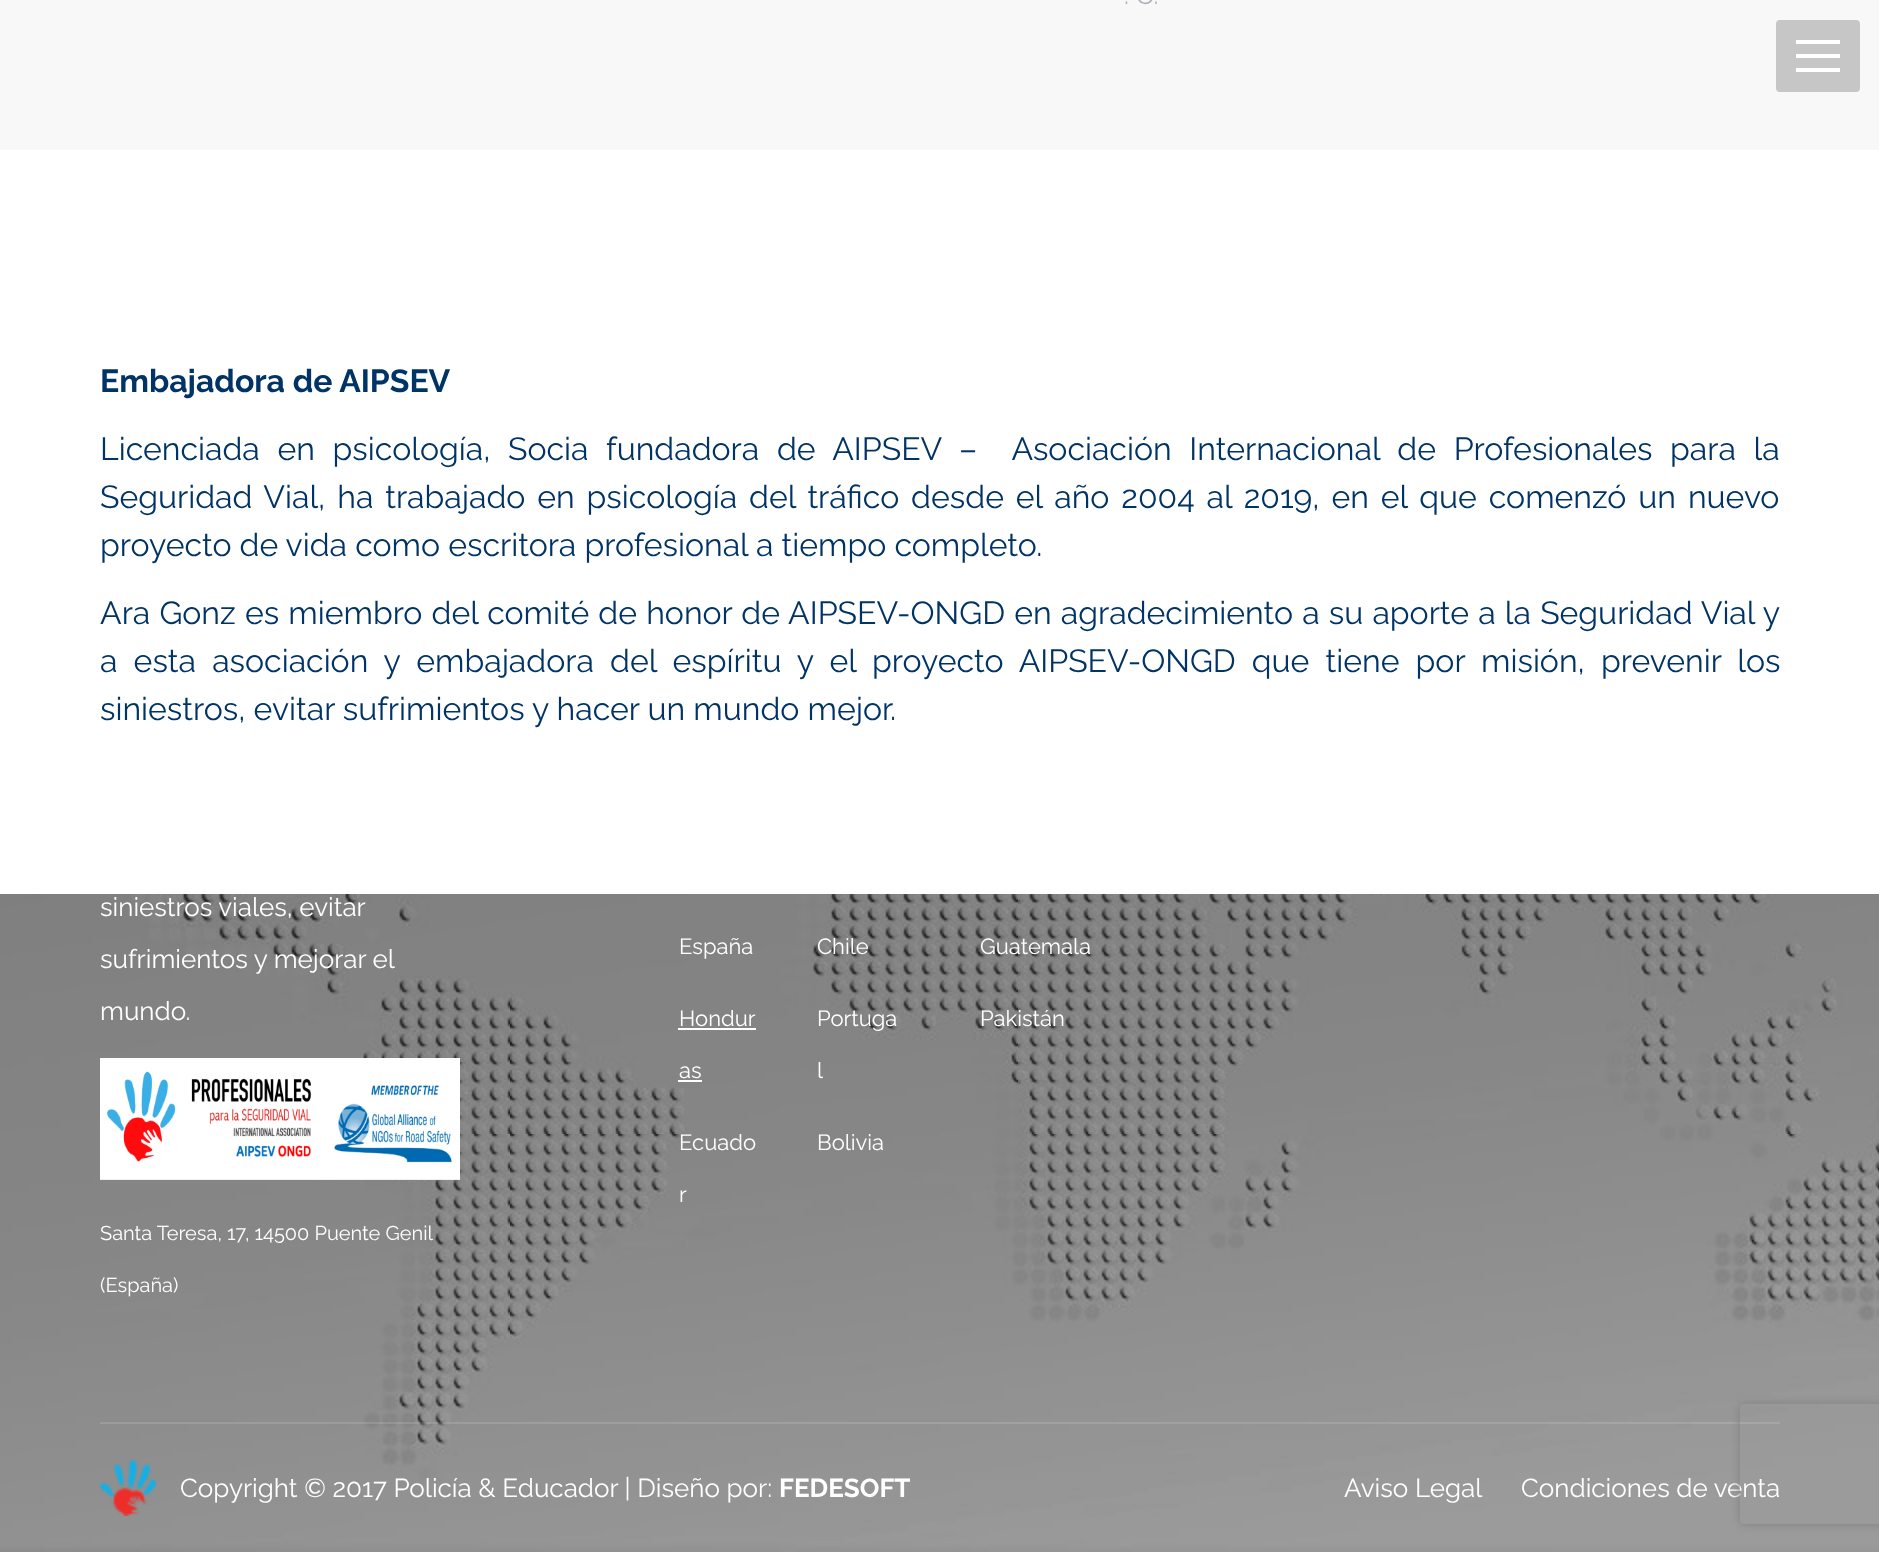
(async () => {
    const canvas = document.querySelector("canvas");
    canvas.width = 1879;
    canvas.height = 1552;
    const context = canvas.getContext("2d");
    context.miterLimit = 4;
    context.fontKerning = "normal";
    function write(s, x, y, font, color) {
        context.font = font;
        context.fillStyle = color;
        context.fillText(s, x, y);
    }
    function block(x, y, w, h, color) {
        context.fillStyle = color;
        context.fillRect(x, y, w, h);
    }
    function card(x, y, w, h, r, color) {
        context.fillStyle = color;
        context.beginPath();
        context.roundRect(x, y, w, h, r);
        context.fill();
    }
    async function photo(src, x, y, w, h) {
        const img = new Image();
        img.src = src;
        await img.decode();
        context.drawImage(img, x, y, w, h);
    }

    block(0, 0, 1879, 1552, "rgb(255, 255, 255)");
    block(0, 0, 1879, 150, "rgb(248, 248, 249)");
    write(". C.", 1124, 4, "26px Raleway", "rgb(173, 176, 182)");
    write("Embajadora de AIPSEV", 100, 392, "bold 32px Raleway", "rgb(0, 51, 102)");
    context.wordSpacing = "9.5px";
    write("Licenciada en psicología, Socia fundadora de AIPSEV –  Asociación Internacional de Profesionales para la", 100, 460, "32px Raleway", "rgb(0, 51, 102)");
    context.wordSpacing = "3.75px";
    write("Seguridad Vial, ha trabajado en psicología del tráfico desde el año 2004 al 2019, en el que comenzó un nuevo", 100, 508, "32px Raleway", "rgb(0, 51, 102)");
    context.wordSpacing = "0px";
    write("proyecto de vida como escritora profesional a tiempo completo.", 100, 556, "32px Raleway", "rgb(0, 51, 102)");
    context.wordSpacing = "1px";
    write("Ara Gonz es miembro del comité de honor de AIPSEV-ONGD en agradecimiento a su aporte a la Seguridad Vial y", 100, 624, "32px Raleway", "rgb(0, 51, 102)");
    context.wordSpacing = "8px";
    write("a esta asociación y embajadora del espíritu y el proyecto AIPSEV-ONGD que tiene por misión, prevenir los", 100, 672, "32px Raleway", "rgb(0, 51, 102)");
    context.wordSpacing = "0px";
    write("siniestros, evitar sufrimientos y hacer un mundo mejor.", 100, 720, "32px Raleway", "rgb(0, 51, 102)");
    card(1776, 20, 84, 72, 4, "rgb(198, 198, 199)");
    block(1796, 40, 44, 4, "rgb(255, 255, 255)");
    block(1796, 54, 44, 4, "rgb(255, 255, 255)");
    block(1796, 68, 44, 4, "rgb(255, 255, 255)");
    await photo("media/1.png", 0, 894, 1879, 658);
    write("siniestros viales, evitar", 100, 916, "26px Raleway", "rgb(255, 255, 255)");
    write("sufrimientos y mejorar el", 100, 968, "26px Raleway", "rgb(255, 255, 255)");
    write("mundo.", 100, 1020, "26px Raleway", "rgb(255, 255, 255)");
    await photo("media/2.png", 100, 1058, 360, 122);
    write("Santa Teresa, 17, 14500 Puente Genil", 100, 1240, "20px Raleway", "rgb(255, 255, 255)");
    write("(España)", 100, 1292, "20px Raleway", "rgb(255, 255, 255)");
    write("España", 679, 954, "22px Raleway", "rgb(255, 255, 255)");
    write("Hondur", 679, 1026, "22px Raleway", "rgb(255, 255, 255)");
    block(678, 1028, 78, 2, "rgb(255, 255, 255)");
    write("as", 679, 1078, "22px Raleway", "rgb(255, 255, 255)");
    block(678, 1080, 24, 2, "rgb(255, 255, 255)");
    write("Ecuado", 679, 1150, "22px Raleway", "rgb(255, 255, 255)");
    write("r", 679, 1202, "22px Raleway", "rgb(255, 255, 255)");
    write("Chile", 817, 954, "22px Raleway", "rgb(255, 255, 255)");
    write("Portuga", 817, 1026, "22px Raleway", "rgb(255, 255, 255)");
    write("l", 817, 1078, "22px Raleway", "rgb(255, 255, 255)");
    write("Bolivia", 817, 1150, "22px Raleway", "rgb(255, 255, 255)");
    write("Guatemala", 980, 954, "22px Raleway", "rgb(255, 255, 255)");
    write("Pakistán", 980, 1026, "22px Raleway", "rgb(255, 255, 255)");
    block(100, 1422, 1680, 2, "rgba(255, 255, 255, 0.13)");
    await photo("media/3.png", 100, 1460, 56, 56);
    write("Copyright © 2017 Policía & Educador | Diseño por:", 180, 1497, "26px Raleway", "rgb(255, 255, 255)");
    write("FEDESOFT", 779, 1497, "bold 26px Raleway", "rgb(255, 255, 255)");
    write("Aviso Legal", 1344, 1497, "26px Raleway", "rgb(255, 255, 255)");
    write("Condiciones de venta", 1521, 1497, "26px Raleway", "rgb(255, 255, 255)");
    context.save();
    context.beginPath();
    context.moveTo(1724, 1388);
    context.lineTo(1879, 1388);
    context.lineTo(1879, 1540);
    context.lineTo(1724, 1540);
    context.closePath();
    context.moveTo(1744, 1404);
    context.lineTo(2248, 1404);
    context.bezierCurveTo(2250, 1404, 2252, 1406, 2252, 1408);
    context.lineTo(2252, 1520);
    context.bezierCurveTo(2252, 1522, 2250, 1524, 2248, 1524);
    context.lineTo(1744, 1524);
    context.bezierCurveTo(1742, 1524, 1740, 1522, 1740, 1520);
    context.lineTo(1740, 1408);
    context.bezierCurveTo(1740, 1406, 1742, 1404, 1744, 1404);
    context.closePath();
    context.clip("evenodd");
    context.fillStyle = "rgb(128, 128, 128)";
    context.filter = "blur(5px)";
    context.beginPath();
    context.roundRect(1740, 1404, 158, 120, 4);
    context.fill();
    context.filter = "none";
    context.restore();
})();
